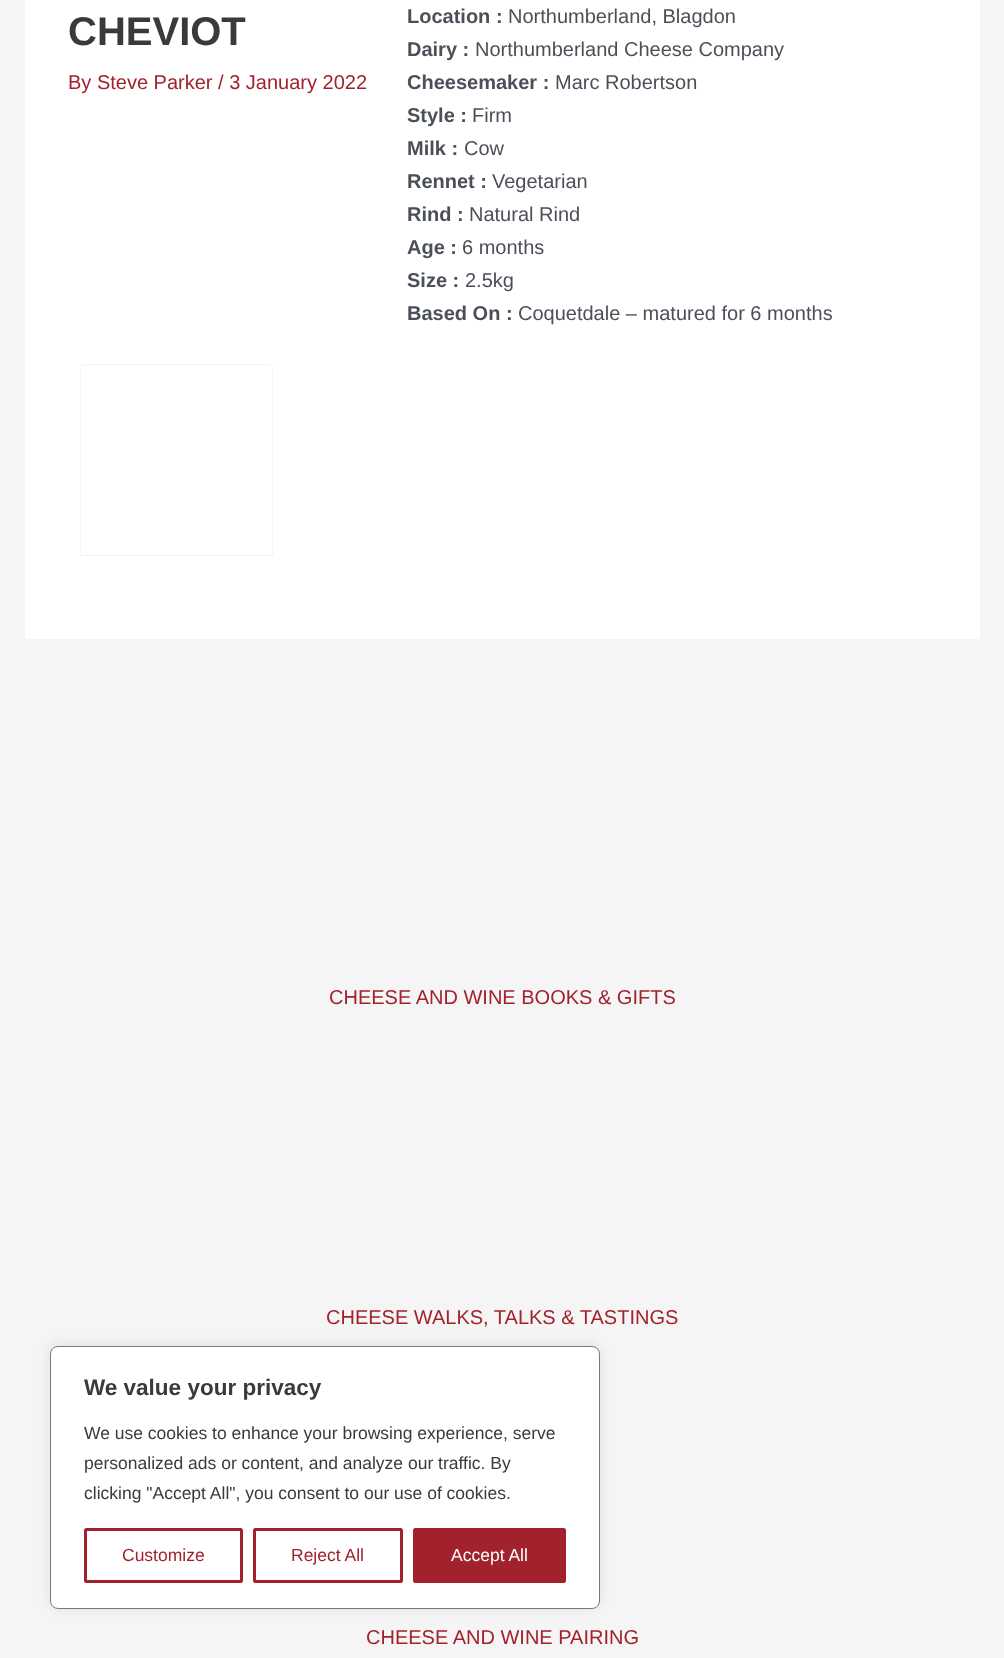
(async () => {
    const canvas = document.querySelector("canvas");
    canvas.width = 1004;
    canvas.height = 1658;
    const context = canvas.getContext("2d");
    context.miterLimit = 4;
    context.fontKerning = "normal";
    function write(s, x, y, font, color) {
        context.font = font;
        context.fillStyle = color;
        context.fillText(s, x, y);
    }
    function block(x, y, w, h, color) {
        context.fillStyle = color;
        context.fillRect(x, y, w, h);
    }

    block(0, 0, 1004, 1658, "rgb(245, 245, 245)");
    block(25, 0, 955, 639, "rgb(255, 255, 255)");
    write("CHEVIOT", 68, 45, "bold 40px Liberation Sans", "rgb(58, 58, 58)");
    write("By Steve Parker / 3 January 2022", 68, 89, "20px Liberation Sans", "rgb(161, 34, 45)");
    write("Location :", 407, 23, "bold 20px Liberation Sans", "rgb(75, 79, 88)");
    write("Northumberland, Blagdon", 508, 23, "20px Liberation Sans", "rgb(75, 79, 88)");
    write("Dairy :", 407, 56, "bold 20px Liberation Sans", "rgb(75, 79, 88)");
    write("Northumberland Cheese Company", 475, 56, "20px Liberation Sans", "rgb(75, 79, 88)");
    write("Cheesemaker :", 407, 89, "bold 20px Liberation Sans", "rgb(75, 79, 88)");
    write("Marc Robertson", 555, 89, "20px Liberation Sans", "rgb(75, 79, 88)");
    write("Style :", 407, 122, "bold 20px Liberation Sans", "rgb(75, 79, 88)");
    write("Firm", 472, 122, "20px Liberation Sans", "rgb(75, 79, 88)");
    write("Milk :", 407, 155, "bold 20px Liberation Sans", "rgb(75, 79, 88)");
    write("Cow", 464, 155, "20px Liberation Sans", "rgb(75, 79, 88)");
    write("Rennet :", 407, 188, "bold 20px Liberation Sans", "rgb(75, 79, 88)");
    write("Vegetarian", 492, 188, "20px Liberation Sans", "rgb(75, 79, 88)");
    write("Rind :", 407, 221, "bold 20px Liberation Sans", "rgb(75, 79, 88)");
    write("Natural Rind", 469, 221, "20px Liberation Sans", "rgb(75, 79, 88)");
    write("Age :", 407, 254, "bold 20px Liberation Sans", "rgb(75, 79, 88)");
    write("6 months", 462, 254, "20px Liberation Sans", "rgb(75, 79, 88)");
    write("Size :", 407, 287, "bold 20px Liberation Sans", "rgb(75, 79, 88)");
    write("2.5kg", 465, 287, "20px Liberation Sans", "rgb(75, 79, 88)");
    write("Based On :", 407, 320, "bold 20px Liberation Sans", "rgb(75, 79, 88)");
    write("Coquetdale – matured for 6 months", 518, 320, "20px Liberation Sans", "rgb(75, 79, 88)");
    context.beginPath();
    context.roundRect(80.5, 364.5, 192, 191, [2, 2, 0, 0]);
    context.strokeStyle = "rgb(242, 245, 247)";
    context.stroke();
    write("CHEESE AND WINE BOOKS & GIFTS", 329, 1004, "20px Liberation Sans", "rgb(161, 34, 45)");
    write("CHEESE WALKS, TALKS & TASTINGS", 326, 1324, "20px Liberation Sans", "rgb(161, 34, 45)");
    write("CHEESE AND WINE PAIRING", 366, 1644, "20px Liberation Sans", "rgb(161, 34, 45)");
    context.fillStyle = "rgba(172, 171, 171, 0.3)";
    context.filter = "blur(6px)";
    context.beginPath();
    context.roundRect(50, 1345, 550, 263, 8);
    context.fill();
    context.filter = "none";
    context.fillStyle = "rgb(255, 255, 255)";
    context.beginPath();
    context.roundRect(50.5, 1346.5, 549, 262, 7.5);
    context.fill();
    context.strokeStyle = "rgb(122, 122, 122)";
    context.stroke();
    write("We value your privacy", 84, 1395, "bold 22.5px Liberation Sans", "rgb(58, 58, 58)");
    write("We use cookies to enhance your browsing experience, serve", 84, 1439, "17.5px Liberation Sans", "rgb(58, 58, 58)");
    write("personalized ads or content, and analyze our traffic. By", 84, 1469, "17.5px Liberation Sans", "rgb(58, 58, 58)");
    write("clicking \"Accept All\", you consent to our use of cookies.", 84, 1499, "17.5px Liberation Sans", "rgb(58, 58, 58)");
    context.beginPath();
    context.roundRect(85.5, 1529.5, 156, 52, 1);
    context.strokeStyle = "rgb(161, 34, 45)";
    context.lineWidth = 3;
    context.stroke();
    write("Customize", 122, 1561, "17.5px Liberation Sans", "rgb(161, 34, 45)");
    context.beginPath();
    context.roundRect(254.5, 1529.5, 147, 52, 1);
    context.stroke();
    write("Reject All", 291, 1561, "17.5px Liberation Sans", "rgb(161, 34, 45)");
    context.beginPath();
    context.roundRect(414.5, 1529.5, 150, 52, 1);
    context.fill();
    context.stroke();
    write("Accept All", 451, 1561, "17.5px Liberation Sans", "rgb(255, 255, 255)");
})();
